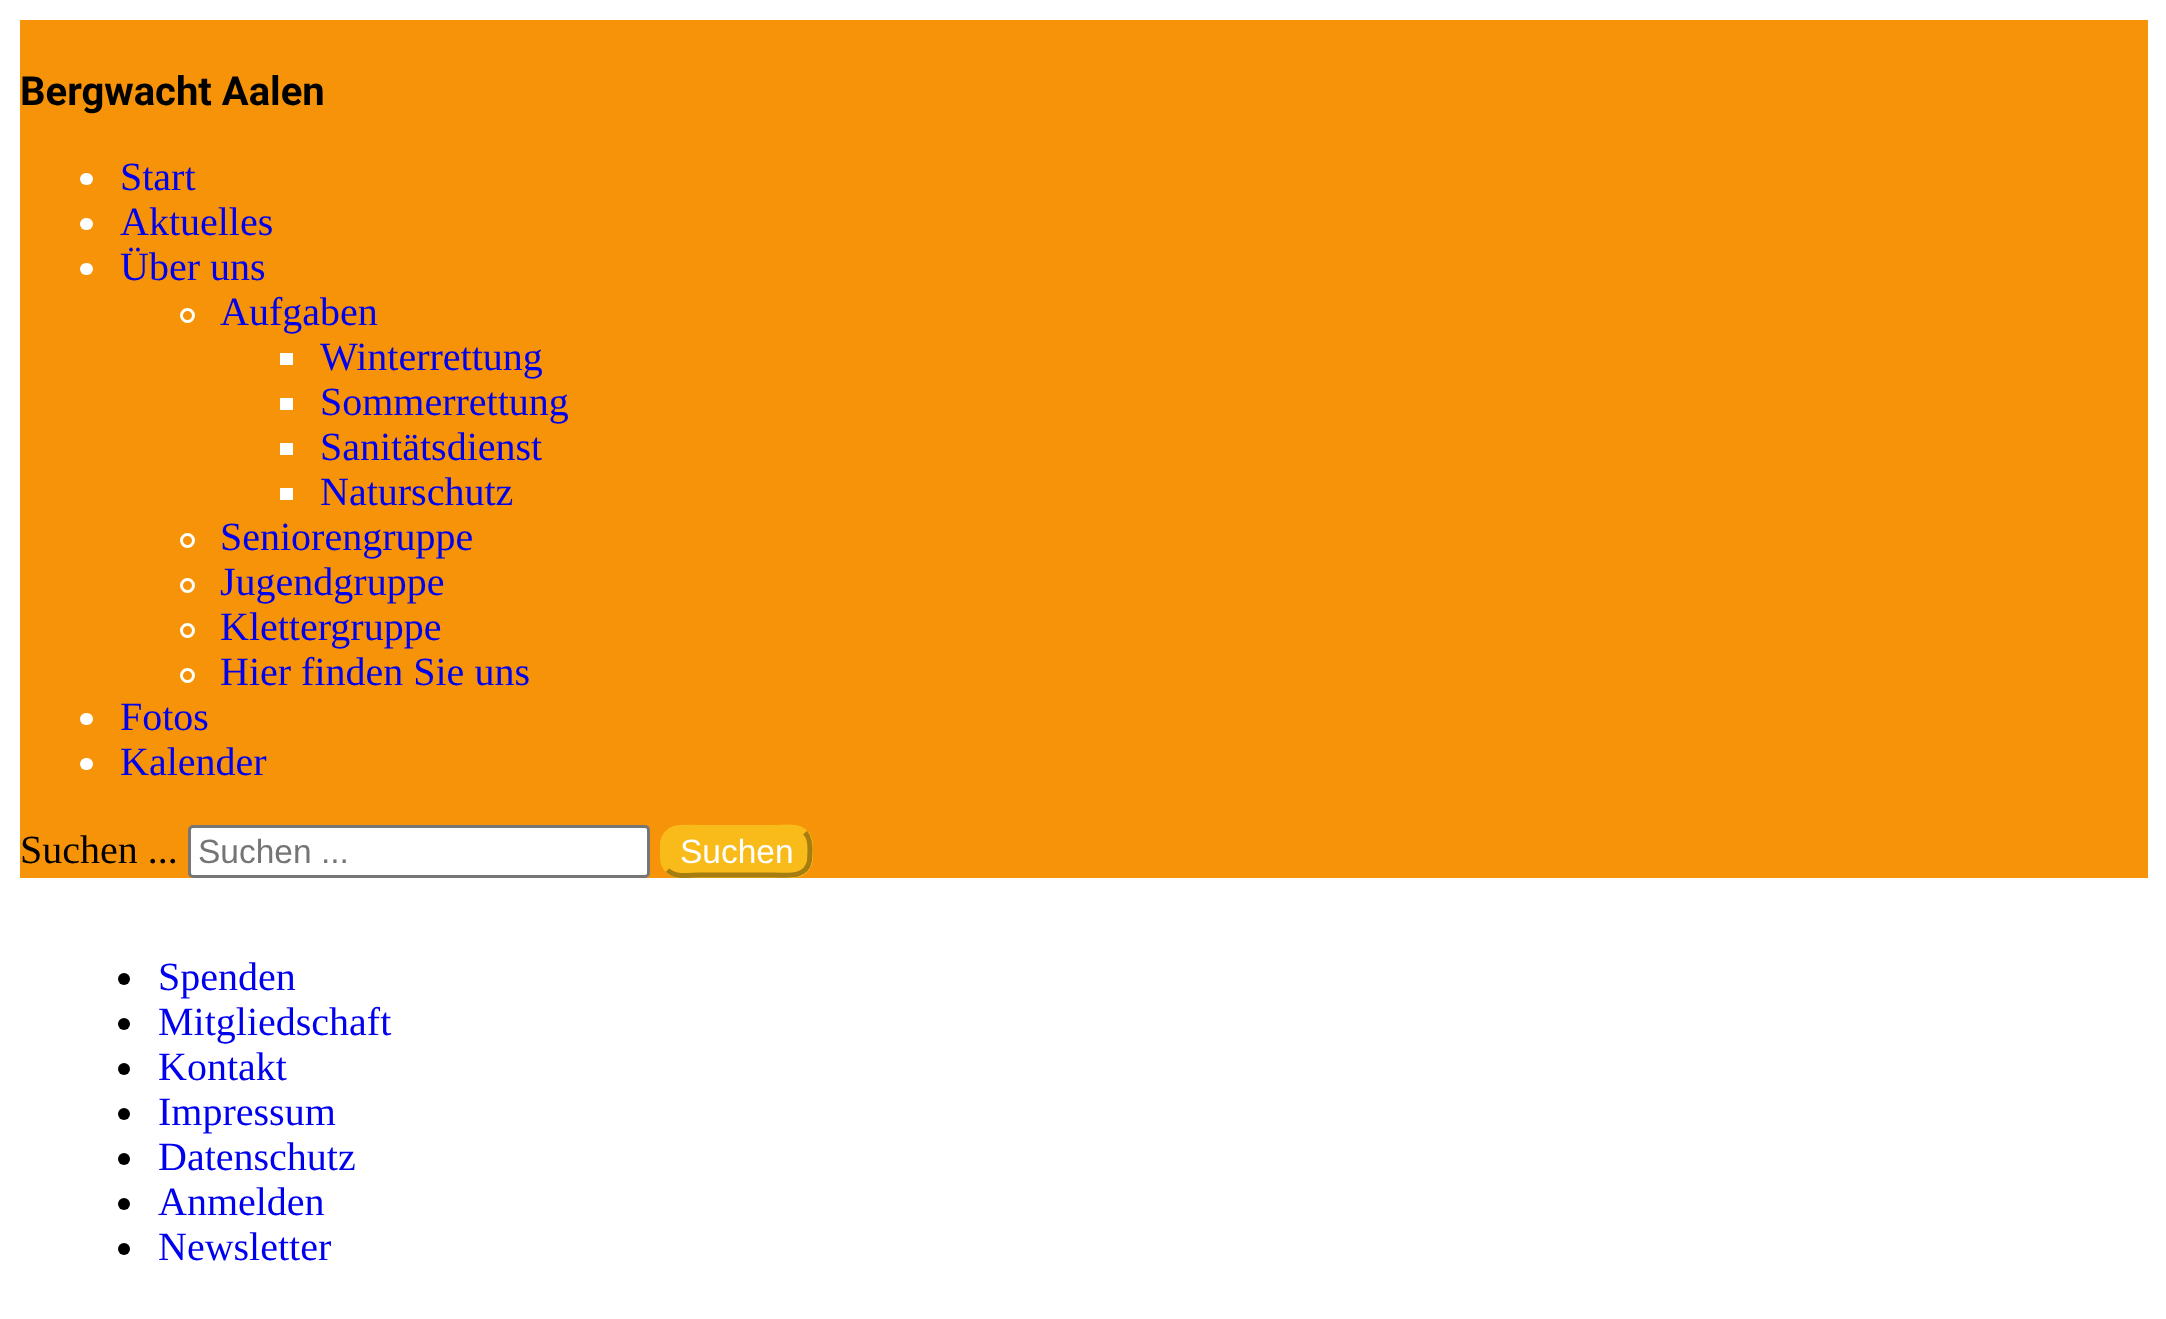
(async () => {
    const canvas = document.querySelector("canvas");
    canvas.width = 2166;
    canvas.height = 1319;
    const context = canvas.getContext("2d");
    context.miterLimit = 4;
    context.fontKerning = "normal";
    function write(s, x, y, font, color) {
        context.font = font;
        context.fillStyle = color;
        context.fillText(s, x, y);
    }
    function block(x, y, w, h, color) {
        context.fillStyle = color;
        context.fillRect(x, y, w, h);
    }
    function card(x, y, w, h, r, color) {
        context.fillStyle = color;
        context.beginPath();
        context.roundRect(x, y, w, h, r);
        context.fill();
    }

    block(0, 0, 2166, 1319, "rgb(255, 255, 255)");
    block(20, 20, 2128, 858, "rgb(247, 147, 8)");
    write("Bergwacht Aalen", 20, 105, "bold 40px Roboto", "rgb(0, 0, 0)");
    card(80, 173, 13, 12, 6, "rgb(255, 255, 255)");
    write("Start", 120, 190, "40px Liberation Serif", "rgb(0, 0, 238)");
    card(80, 218, 13, 12, 6, "rgb(255, 255, 255)");
    write("Aktuelles", 120, 235, "40px Liberation Serif", "rgb(0, 0, 238)");
    card(80, 263, 13, 12, 6, "rgb(255, 255, 255)");
    write("Über uns", 120, 280, "40px Liberation Serif", "rgb(0, 0, 238)");
    context.beginPath();
    context.arc(187.5, 315.5, 6, 0, Math.PI * 2);
    context.strokeStyle = "rgb(255, 255, 255)";
    context.lineWidth = 3;
    context.stroke();
    write("Aufgaben", 220, 325, "40px Liberation Serif", "rgb(0, 0, 238)");
    block(280, 353, 13, 12, "rgb(255, 255, 255)");
    write("Winterrettung", 320, 370, "40px Liberation Serif", "rgb(0, 0, 238)");
    block(280, 398, 13, 12, "rgb(255, 255, 255)");
    write("Sommerrettung", 320, 415, "40px Liberation Serif", "rgb(0, 0, 238)");
    block(280, 443, 13, 12, "rgb(255, 255, 255)");
    write("Sanitätsdienst", 320, 460, "40px Liberation Serif", "rgb(0, 0, 238)");
    block(280, 488, 13, 12, "rgb(255, 255, 255)");
    write("Naturschutz", 320, 505, "40px Liberation Serif", "rgb(0, 0, 238)");
    context.beginPath();
    context.arc(187.5, 540.5, 6, 0, Math.PI * 2);
    context.stroke();
    write("Seniorengruppe", 220, 550, "40px Liberation Serif", "rgb(0, 0, 238)");
    context.beginPath();
    context.arc(187.5, 585.5, 6, 0, Math.PI * 2);
    context.stroke();
    write("Jugendgruppe", 220, 595, "40px Liberation Serif", "rgb(0, 0, 238)");
    context.beginPath();
    context.arc(187.5, 630.5, 6, 0, Math.PI * 2);
    context.stroke();
    write("Klettergruppe", 220, 640, "40px Liberation Serif", "rgb(0, 0, 238)");
    context.beginPath();
    context.arc(187.5, 675.5, 6, 0, Math.PI * 2);
    context.stroke();
    write("Hier finden Sie uns", 220, 685, "40px Liberation Serif", "rgb(0, 0, 238)");
    card(80, 713, 13, 12, 6, "rgb(255, 255, 255)");
    write("Fotos", 120, 730, "40px Liberation Serif", "rgb(0, 0, 238)");
    card(80, 758, 13, 12, 6, "rgb(255, 255, 255)");
    write("Kalender", 120, 775, "40px Liberation Serif", "rgb(0, 0, 238)");
    write("Suchen ...", 20, 863, "40px Liberation Serif", "rgb(0, 0, 0)");
    context.fillStyle = "rgb(255, 255, 255)";
    context.beginPath();
    context.roundRect(189.5, 826.5, 459, 50, 3.5);
    context.fill();
    context.strokeStyle = "rgb(118, 118, 118)";
    context.stroke();
    write("Suchen ...", 198, 863, "33.5px Liberation Sans", "rgb(117, 117, 117)");
    card(660, 825, 153, 53, 20, "rgb(248, 187, 25)");
    context.beginPath();
    context.moveTo(805, 832.5);
    context.bezierCurveTo(810, 838, 810, 844.5, 810, 851);
    context.lineTo(809.5, 861);
    context.bezierCurveTo(806, 878.5, 787, 875, 774, 875);
    context.lineTo(699, 875);
    context.bezierCurveTo(689, 875, 675.5, 878, 667.5, 870);
    context.strokeStyle = "rgb(165, 125, 17)";
    context.lineWidth = 5;
    context.stroke();
    context.beginPath();
    context.moveTo(667.5, 870);
    context.bezierCurveTo(662.5, 864.5, 662.5, 858, 662.5, 851);
    context.lineTo(663, 841.5);
    context.bezierCurveTo(666.5, 824, 685.5, 827.5, 699, 827.5);
    context.lineTo(774, 827.5);
    context.bezierCurveTo(783.5, 827.5, 797, 824.5, 805, 832.5);
    context.strokeStyle = "rgb(248, 187, 25)";
    context.stroke();
    write("Suchen", 680, 863, "33.5px Liberation Sans", "rgb(255, 255, 255)");
    context.fillStyle = "rgb(0, 0, 0)";
    context.beginPath();
    context.arc(124, 979, 6, 0, Math.PI * 2);
    context.fill();
    write("Spenden", 158, 990, "40px Liberation Serif", "rgb(0, 0, 238)");
    context.fillStyle = "rgb(0, 0, 0)";
    context.beginPath();
    context.arc(124, 1024, 6, 0, Math.PI * 2);
    context.fill();
    write("Mitgliedschaft", 158, 1035, "40px Liberation Serif", "rgb(0, 0, 238)");
    context.fillStyle = "rgb(0, 0, 0)";
    context.beginPath();
    context.arc(124, 1069, 6, 0, Math.PI * 2);
    context.fill();
    write("Kontakt", 158, 1080, "40px Liberation Serif", "rgb(0, 0, 238)");
    context.fillStyle = "rgb(0, 0, 0)";
    context.beginPath();
    context.arc(124, 1114, 6, 0, Math.PI * 2);
    context.fill();
    write("Impressum", 158, 1125, "40px Liberation Serif", "rgb(0, 0, 238)");
    context.fillStyle = "rgb(0, 0, 0)";
    context.beginPath();
    context.arc(124, 1159, 6, 0, Math.PI * 2);
    context.fill();
    write("Datenschutz", 158, 1170, "40px Liberation Serif", "rgb(0, 0, 238)");
    context.fillStyle = "rgb(0, 0, 0)";
    context.beginPath();
    context.arc(124, 1204, 6, 0, Math.PI * 2);
    context.fill();
    write("Anmelden", 158, 1215, "40px Liberation Serif", "rgb(0, 0, 238)");
    context.fillStyle = "rgb(0, 0, 0)";
    context.beginPath();
    context.arc(124, 1249, 6, 0, Math.PI * 2);
    context.fill();
    write("Newsletter", 158, 1260, "40px Liberation Serif", "rgb(0, 0, 238)");
})();
